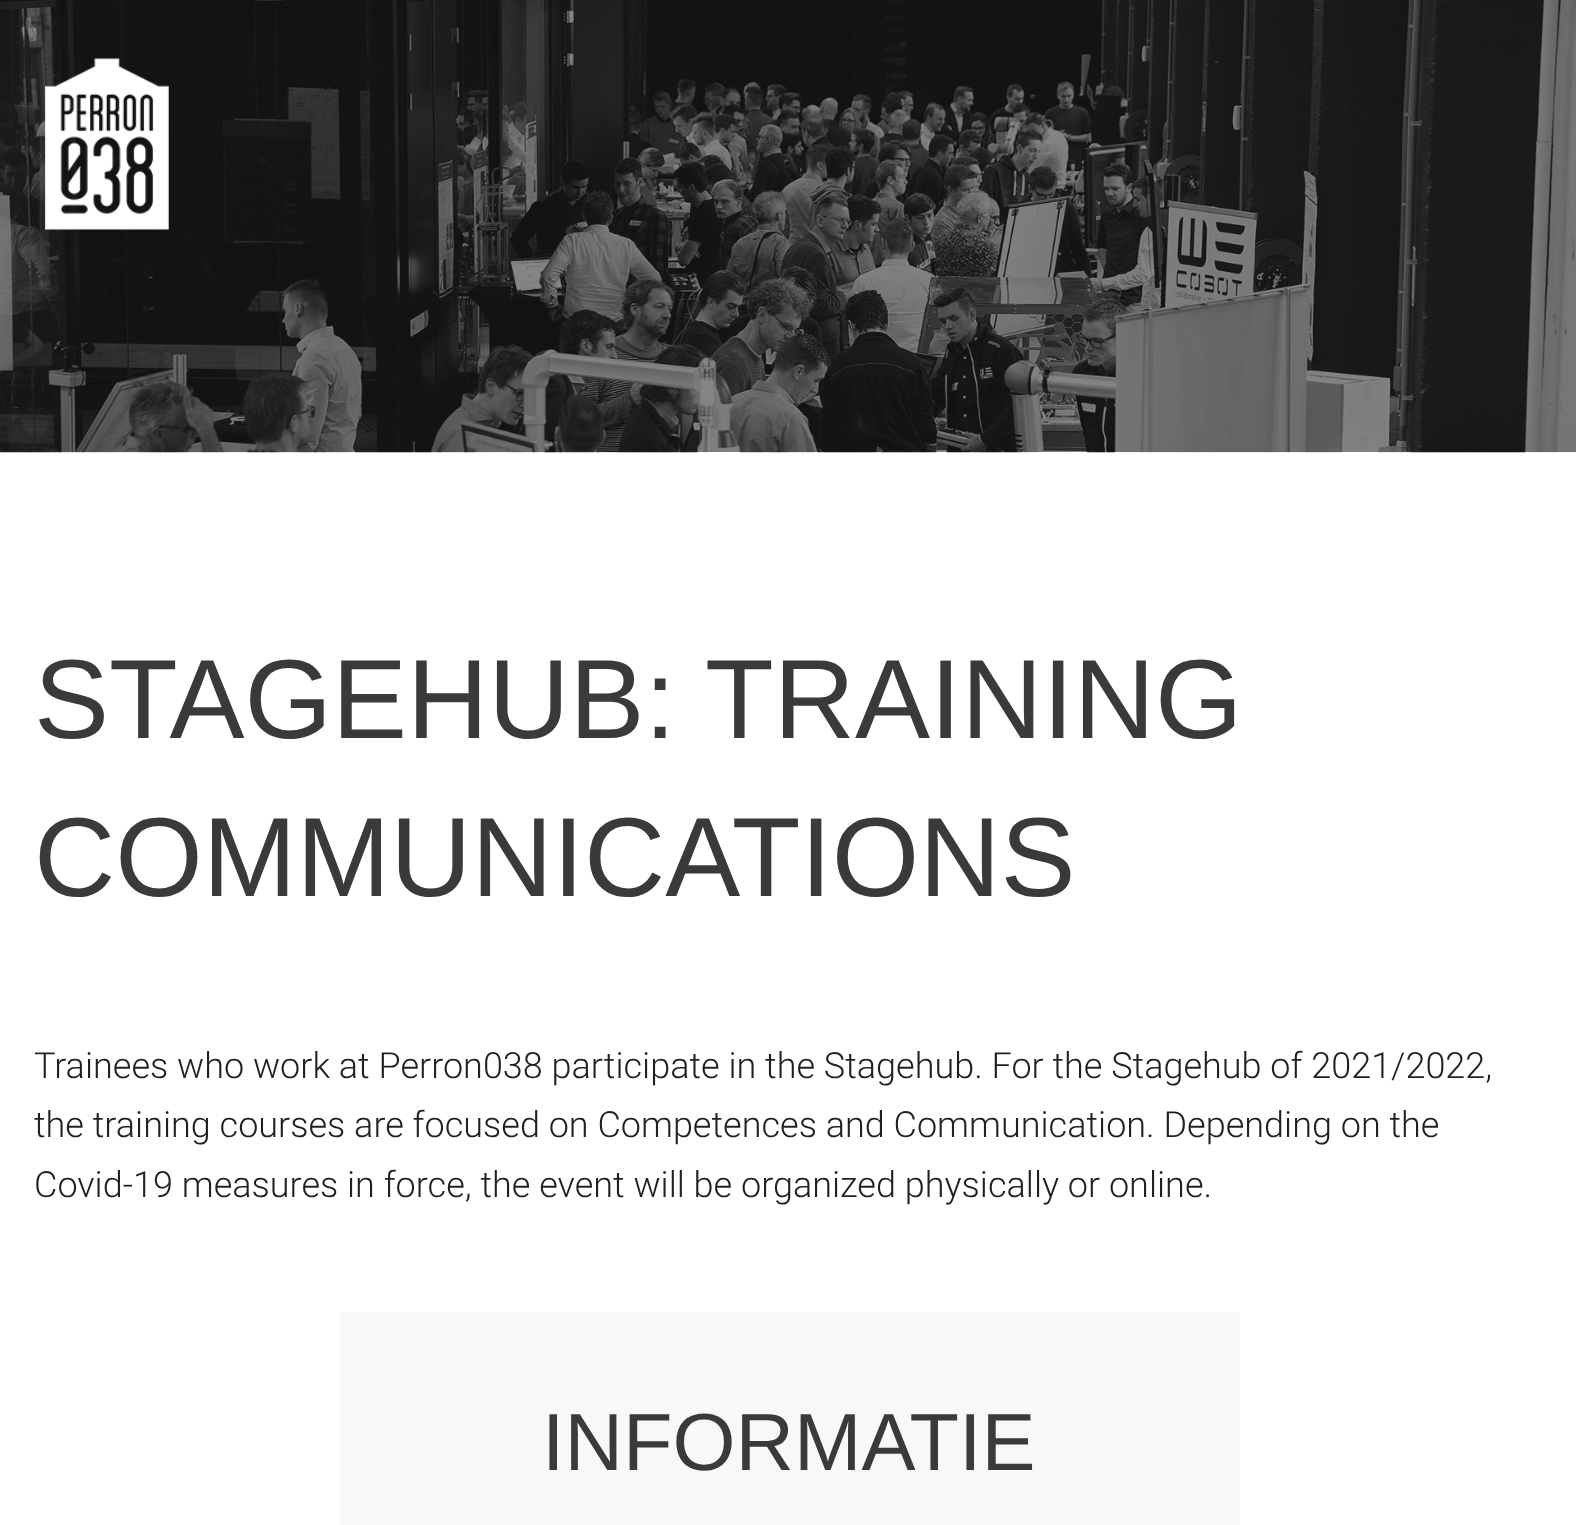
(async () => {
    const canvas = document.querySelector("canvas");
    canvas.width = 1576;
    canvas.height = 1525;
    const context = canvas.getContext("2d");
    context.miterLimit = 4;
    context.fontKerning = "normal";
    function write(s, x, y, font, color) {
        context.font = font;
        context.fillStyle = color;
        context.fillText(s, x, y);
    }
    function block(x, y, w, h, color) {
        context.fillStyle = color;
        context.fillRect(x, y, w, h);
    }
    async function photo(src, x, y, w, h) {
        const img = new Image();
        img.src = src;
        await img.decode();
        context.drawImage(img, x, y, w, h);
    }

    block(0, 0, 1576, 1525, "rgb(255, 255, 255)");
    await photo("media/2.png", 0, 0, 1576, 453);
    await photo("media/1.png", 45, 58, 124, 172);
    write("STAGEHUB: TRAINING", 34, 738, "112.5px Liberation Sans", "rgb(58, 58, 58)");
    write("COMMUNICATIONS", 34, 896, "112.5px Liberation Sans", "rgb(58, 58, 58)");
    write("Trainees who work at Perron038 participate in the Stagehub. For the Stagehub of 2021/2022,", 34, 1078, "300 36px Roboto", "rgb(35, 31, 32)");
    write("the training courses are focused on Competences and Communication. Depending on the", 34, 1137, "300 36px Roboto", "rgb(35, 31, 32)");
    write("Covid-19 measures in force, the event will be organized physically or online.", 34, 1197, "300 36px Roboto", "rgb(35, 31, 32)");
    block(340, 1312, 900, 213, "rgb(248, 248, 248)");
    write("INFORMATIE", 542, 1470, "81px Liberation Sans", "rgb(58, 58, 58)");
})();
